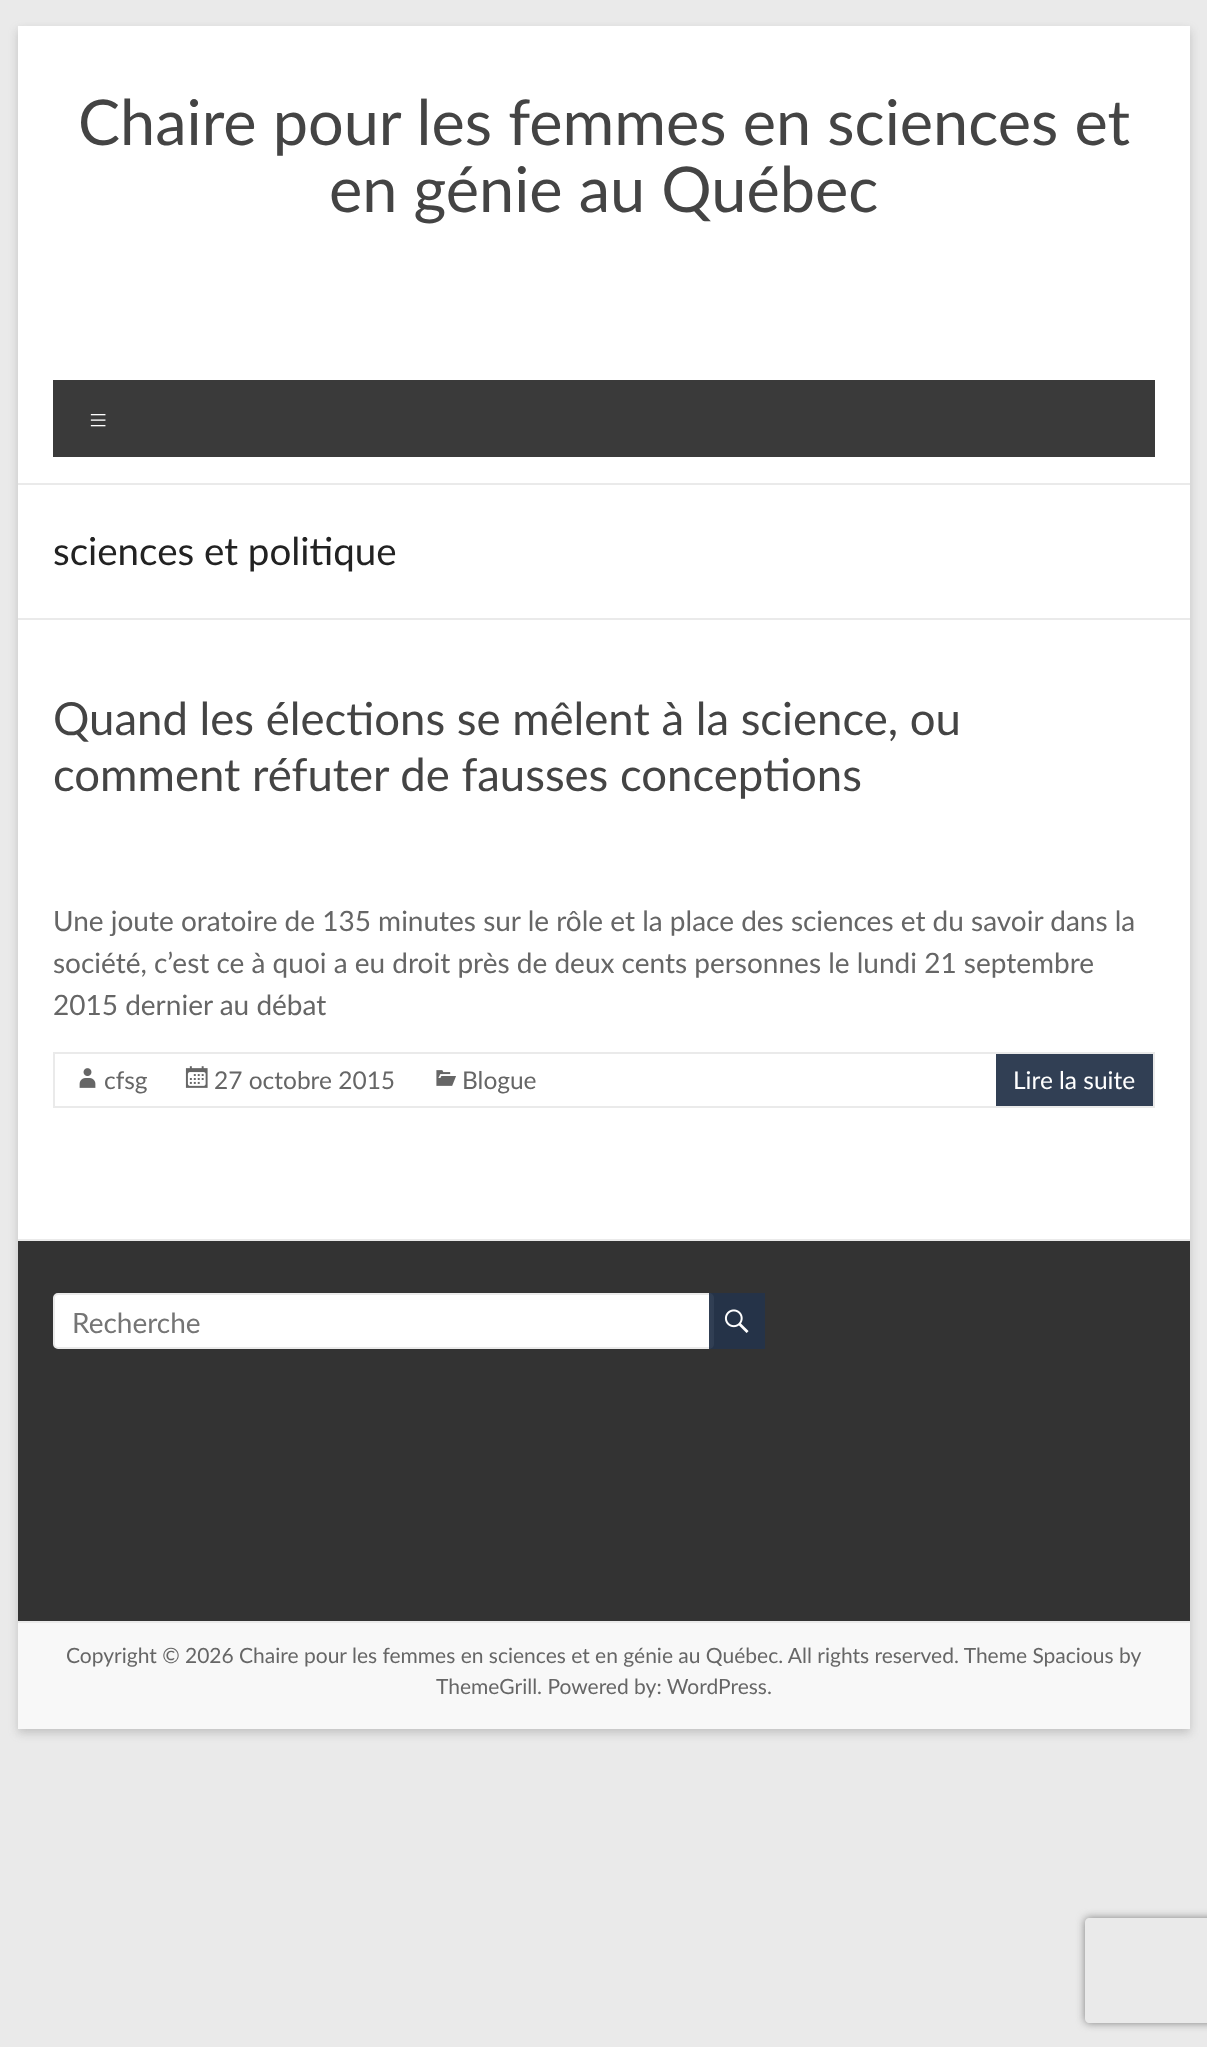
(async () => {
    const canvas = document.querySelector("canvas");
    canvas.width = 1207;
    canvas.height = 2047;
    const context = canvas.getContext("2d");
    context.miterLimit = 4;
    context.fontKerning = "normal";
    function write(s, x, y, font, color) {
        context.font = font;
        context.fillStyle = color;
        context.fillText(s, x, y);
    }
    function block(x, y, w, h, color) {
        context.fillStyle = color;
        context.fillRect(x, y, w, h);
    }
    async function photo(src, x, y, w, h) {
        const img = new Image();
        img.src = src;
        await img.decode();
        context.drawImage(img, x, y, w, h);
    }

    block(0, 0, 1207, 2047, "rgb(234, 234, 234)");
    context.fillStyle = "rgba(100, 100, 100, 0.3)";
    context.filter = "blur(5px)";
    context.beginPath();
    context.rect(18, 30, 1172, 1703);
    context.fill();
    context.filter = "none";
    block(18, 26, 1172, 1213, "rgb(255, 255, 255)");
    block(18, 483, 1172, 2, "rgb(234, 234, 234)");
    write("Chaire pour les femmes en sciences et", 78, 145, "63px Lato", "rgb(68, 68, 68)");
    write("en génie au Québec", 329, 212, "63px Lato", "rgb(68, 68, 68)");
    block(53, 380, 1102, 77, "rgb(58, 58, 58)");
    write("≡", 88, 432, "300 35px Lato", "rgb(255, 255, 255)");
    block(18, 618, 1172, 2, "rgb(234, 234, 234)");
    write("sciences et politique", 53, 565, "38.5px Lato", "rgb(34, 34, 34)");
    write("Quand les élections se mêlent à la science, ou", 53, 735, "45.5px Lato", "rgb(68, 68, 68)");
    write("comment réfuter de fausses conceptions", 53, 791, "45.5px Lato", "rgb(68, 68, 68)");
    write("Une joute oratoire de 135 minutes sur le rôle et la place des sciences et du savoir dans la", 53, 931, "28px Lato", "rgb(102, 102, 102)");
    write("société, c’est ce à quoi a eu droit près de deux cents personnes le lundi 21 septembre", 53, 973, "28px Lato", "rgb(102, 102, 102)");
    write("2015 dernier au débat", 53, 1015, "28px Lato", "rgb(102, 102, 102)");
    context.strokeStyle = "rgb(234, 234, 234)";
    context.lineWidth = 2;
    context.strokeRect(54, 1053, 1100, 54);
    await photo("media/1.png", 79, 1068, 17, 20);
    write("cfsg", 104, 1089, "24.5px Lato", "rgb(102, 102, 102)");
    await photo("media/2.png", 185, 1066, 23, 22);
    write("27 octobre 2015", 214, 1089, "24.5px Lato", "rgb(102, 102, 102)");
    await photo("media/3.png", 436, 1070, 20, 16);
    write("Blogue", 462, 1089, "24.5px Lato", "rgb(102, 102, 102)");
    block(996, 1054, 157, 52, "rgb(49, 63, 84)");
    write("Lire la suite", 1013, 1089, "24.5px Lato", "rgb(255, 255, 255)");
    block(18, 1241, 1172, 380, "rgb(51, 51, 51)");
    block(18, 1239, 1172, 2, "rgb(234, 234, 234)");
    context.fillStyle = "rgb(255, 255, 255)";
    context.beginPath();
    context.roundRect(54, 1294, 659, 54, 4);
    context.fill();
    context.stroke();
    write("Recherche", 72, 1333, "28px Lato", "rgb(117, 117, 117)");
    block(709, 1293, 56, 56, "rgba(36, 51, 73, 0.94)");
    await photo("media/4.png", 724, 1309, 25, 24);
    block(18, 1623, 1172, 106, "rgb(248, 248, 248)");
    block(18, 1621, 1172, 2, "rgb(234, 234, 234)");
    write("Copyright © 2026 Chaire pour les femmes en sciences et en génie au Québec. All rights reserved. Theme Spacious by", 66, 1663, "21px Lato", "rgb(102, 102, 102)");
    write("ThemeGrill. Powered by: WordPress.", 436, 1694, "21px Lato", "rgb(102, 102, 102)");
    context.save();
    context.beginPath();
    context.moveTo(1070, 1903);
    context.lineTo(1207, 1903);
    context.lineTo(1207, 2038);
    context.lineTo(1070, 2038);
    context.closePath();
    context.moveTo(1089, 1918);
    context.lineTo(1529, 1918);
    context.bezierCurveTo(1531, 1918, 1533, 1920, 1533, 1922);
    context.lineTo(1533, 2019);
    context.bezierCurveTo(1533, 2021, 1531, 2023, 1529, 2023);
    context.lineTo(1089, 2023);
    context.bezierCurveTo(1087, 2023, 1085, 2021, 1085, 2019);
    context.lineTo(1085, 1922);
    context.bezierCurveTo(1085, 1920, 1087, 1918, 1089, 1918);
    context.closePath();
    context.clip("evenodd");
    context.fillStyle = "rgb(128, 128, 128)";
    context.filter = "blur(4.5px)";
    context.beginPath();
    context.roundRect(1085, 1918, 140, 105, 4);
    context.fill();
    context.filter = "none";
    context.restore();
})();
